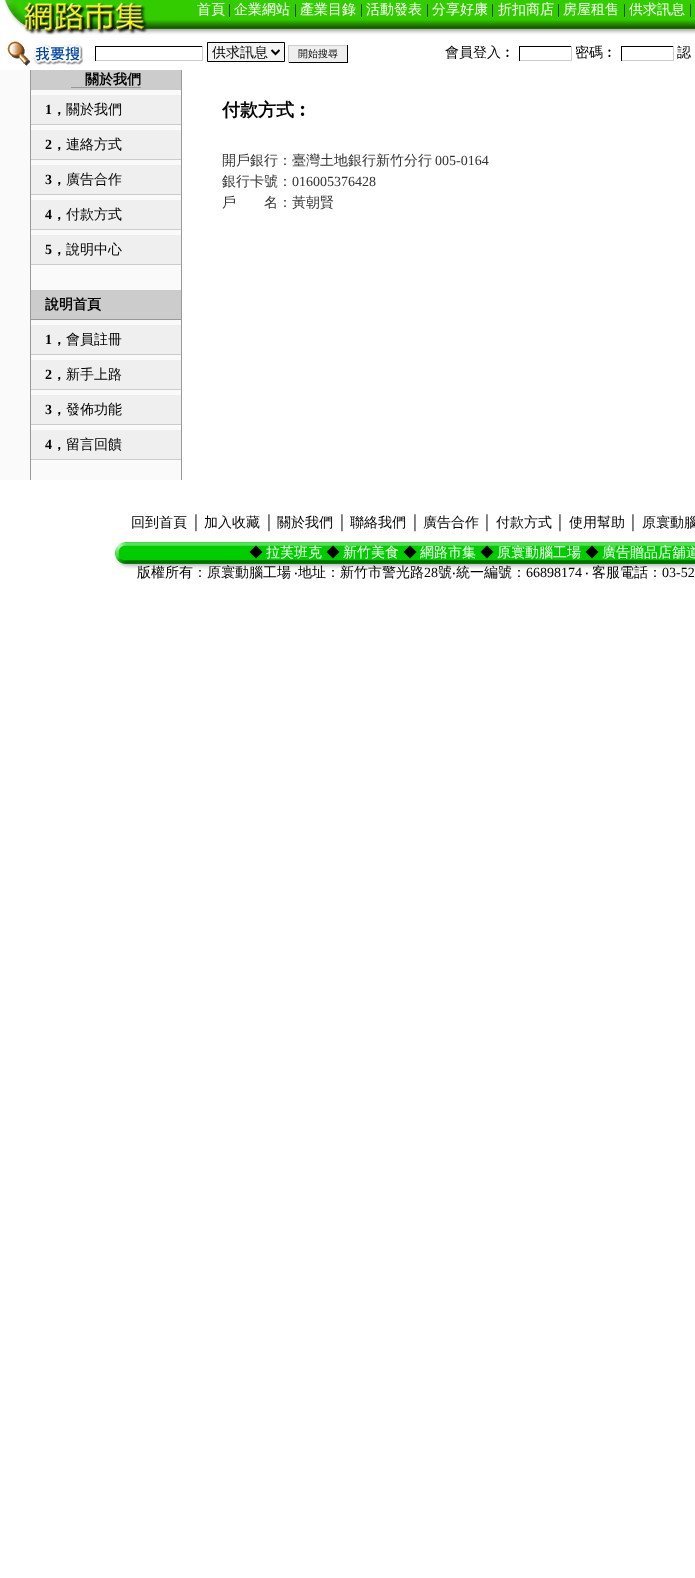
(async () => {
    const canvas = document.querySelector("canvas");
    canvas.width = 695;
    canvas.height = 1578;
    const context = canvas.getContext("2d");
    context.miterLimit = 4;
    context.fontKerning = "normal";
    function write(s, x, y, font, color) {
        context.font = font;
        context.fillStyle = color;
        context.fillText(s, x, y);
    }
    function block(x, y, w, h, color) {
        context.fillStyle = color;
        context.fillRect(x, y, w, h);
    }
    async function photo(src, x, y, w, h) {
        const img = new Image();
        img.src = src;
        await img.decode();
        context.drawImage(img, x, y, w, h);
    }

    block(0, 0, 695, 1578, "rgb(255, 255, 255)");
    await photo("media/1.png", 3, 0, 692, 35);
    write("首頁", 197, 14, "500 14px WenQuanYi Zen Hei", "rgb(255, 255, 255)");
    write("|", 228, 14, "14px Liberation Serif", "rgb(0, 0, 0)");
    write("企業網站", 234, 14, "500 14px WenQuanYi Zen Hei", "rgb(255, 255, 255)");
    write("|", 294, 14, "14px Liberation Serif", "rgb(0, 0, 0)");
    write("產業目錄", 300, 14, "500 14px WenQuanYi Zen Hei", "rgb(255, 255, 255)");
    write("|", 360, 14, "14px Liberation Serif", "rgb(0, 0, 0)");
    write("活動發表", 366, 14, "500 14px WenQuanYi Zen Hei", "rgb(255, 255, 255)");
    write("|", 426, 14, "14px Liberation Serif", "rgb(0, 0, 0)");
    write("分享好康", 432, 14, "500 14px WenQuanYi Zen Hei", "rgb(255, 255, 255)");
    write("|", 491, 14, "14px Liberation Serif", "rgb(0, 0, 0)");
    write("折扣商店", 498, 14, "500 14px WenQuanYi Zen Hei", "rgb(255, 255, 255)");
    write("|", 557, 14, "14px Liberation Serif", "rgb(0, 0, 0)");
    write("房屋租售", 563, 14, "500 14px WenQuanYi Zen Hei", "rgb(255, 255, 255)");
    write("|", 623, 14, "14px Liberation Serif", "rgb(0, 0, 0)");
    write("供求訊息", 629, 14, "500 14px WenQuanYi Zen Hei", "rgb(255, 255, 255)");
    write("|", 689, 14, "14px Liberation Serif", "rgb(0, 0, 0)");
    await photo("media/2.png", 7, 41, 77, 25);
    block(95, 46, 108, 1, "rgb(0, 0, 0)");
    block(202, 46, 1, 15, "rgb(204, 204, 204)");
    block(95, 60, 108, 1, "rgb(204, 204, 204)");
    block(95, 46, 1, 15, "rgb(0, 0, 0)");
    context.fillStyle = "rgb(244, 244, 244)";
    context.beginPath();
    context.rect(207.5, 42.5, 77, 19);
    context.fill();
    context.strokeStyle = "rgb(0, 0, 0)";
    context.stroke();
    context.beginPath();
    context.moveTo(271.5, 50);
    context.lineTo(275.5, 54);
    context.lineTo(279.5, 50);
    context.lineWidth = 2;
    context.stroke();
    write("供求訊息", 212, 57, "500 14px WenQuanYi Zen Hei", "rgb(0, 0, 0)");
    block(289, 46, 58, 16, "rgb(239, 239, 239)");
    block(288, 45, 60, 1, "rgb(204, 204, 204)");
    block(347, 45, 1, 18, "rgb(0, 0, 0)");
    block(288, 62, 60, 1, "rgb(0, 0, 0)");
    block(288, 45, 1, 18, "rgb(204, 204, 204)");
    write("開始搜尋", 298, 57, "500 10px WenQuanYi Zen Hei", "rgb(0, 0, 0)");
    write("會員登入︰", 445, 57, "500 14px WenQuanYi Zen Hei", "rgb(0, 0, 0)");
    block(519, 46, 53, 1, "rgb(0, 0, 0)");
    block(571, 46, 1, 15, "rgb(204, 204, 204)");
    block(519, 60, 53, 1, "rgb(204, 204, 204)");
    block(519, 46, 1, 15, "rgb(0, 0, 0)");
    write("密碼︰", 575, 57, "500 14px WenQuanYi Zen Hei", "rgb(0, 0, 0)");
    block(621, 46, 53, 1, "rgb(0, 0, 0)");
    block(673, 46, 1, 15, "rgb(204, 204, 204)");
    block(621, 60, 53, 1, "rgb(204, 204, 204)");
    block(621, 46, 1, 15, "rgb(0, 0, 0)");
    write("認", 677, 57, "500 14px WenQuanYi Zen Hei", "rgb(0, 0, 0)");
    block(0, 70, 30, 410, "rgb(250, 250, 250)");
    block(30, 70, 1, 410, "rgb(153, 153, 153)");
    block(31, 90, 150, 390, "rgb(250, 250, 250)");
    block(181, 70, 1, 410, "rgb(153, 153, 153)");
    block(31, 70, 150, 20, "rgb(204, 204, 204)");
    write("關於我們", 85, 84, "bold 14px WenQuanYi Zen Hei", "rgb(0, 0, 0)");
    block(71, 87, 70, 1, "rgb(153, 153, 153)");
    block(31, 95, 150, 29, "rgb(239, 239, 239)");
    block(31, 124, 150, 1, "rgb(204, 204, 204)");
    write("1", 45, 114, "bold 14px Liberation Serif", "rgb(0, 0, 0)");
    write("，", 52, 114, "bold 14px WenQuanYi Zen Hei", "rgb(0, 0, 0)");
    write("關於我們", 66, 114, "500 14px WenQuanYi Zen Hei", "rgb(0, 0, 0)");
    block(31, 130, 150, 29, "rgb(239, 239, 239)");
    block(31, 159, 150, 1, "rgb(204, 204, 204)");
    write("2", 45, 149, "bold 14px Liberation Serif", "rgb(0, 0, 0)");
    write("，", 52, 149, "bold 14px WenQuanYi Zen Hei", "rgb(0, 0, 0)");
    write("連絡方式", 66, 149, "500 14px WenQuanYi Zen Hei", "rgb(0, 0, 0)");
    block(31, 165, 150, 29, "rgb(239, 239, 239)");
    block(31, 194, 150, 1, "rgb(204, 204, 204)");
    write("3", 45, 184, "bold 14px Liberation Serif", "rgb(0, 0, 0)");
    write("，", 52, 184, "bold 14px WenQuanYi Zen Hei", "rgb(0, 0, 0)");
    write("廣告合作", 66, 184, "500 14px WenQuanYi Zen Hei", "rgb(0, 0, 0)");
    block(31, 200, 150, 29, "rgb(239, 239, 239)");
    block(31, 229, 150, 1, "rgb(204, 204, 204)");
    write("4", 45, 219, "bold 14px Liberation Serif", "rgb(0, 0, 0)");
    write("，", 52, 219, "bold 14px WenQuanYi Zen Hei", "rgb(0, 0, 0)");
    write("付款方式", 66, 219, "500 14px WenQuanYi Zen Hei", "rgb(0, 0, 0)");
    block(31, 235, 150, 29, "rgb(239, 239, 239)");
    block(31, 264, 150, 1, "rgb(204, 204, 204)");
    write("5", 45, 254, "bold 14px Liberation Serif", "rgb(0, 0, 0)");
    write("，", 52, 254, "bold 14px WenQuanYi Zen Hei", "rgb(0, 0, 0)");
    write("說明中心", 66, 254, "500 14px WenQuanYi Zen Hei", "rgb(0, 0, 0)");
    block(31, 290, 150, 29, "rgb(204, 204, 204)");
    block(31, 319, 150, 1, "rgb(153, 153, 153)");
    write("說明首頁", 45, 309, "bold 14px WenQuanYi Zen Hei", "rgb(0, 0, 0)");
    block(31, 325, 150, 29, "rgb(239, 239, 239)");
    block(31, 354, 150, 1, "rgb(204, 204, 204)");
    write("1", 45, 344, "bold 14px Liberation Serif", "rgb(0, 0, 0)");
    write("，", 52, 344, "bold 14px WenQuanYi Zen Hei", "rgb(0, 0, 0)");
    write("會員註冊", 66, 344, "500 14px WenQuanYi Zen Hei", "rgb(0, 0, 0)");
    block(31, 360, 150, 29, "rgb(239, 239, 239)");
    block(31, 389, 150, 1, "rgb(204, 204, 204)");
    write("2", 45, 379, "bold 14px Liberation Serif", "rgb(0, 0, 0)");
    write("，", 52, 379, "bold 14px WenQuanYi Zen Hei", "rgb(0, 0, 0)");
    write("新手上路", 66, 379, "500 14px WenQuanYi Zen Hei", "rgb(0, 0, 0)");
    block(31, 395, 150, 29, "rgb(239, 239, 239)");
    block(31, 424, 150, 1, "rgb(204, 204, 204)");
    write("3", 45, 414, "bold 14px Liberation Serif", "rgb(0, 0, 0)");
    write("，", 52, 414, "bold 14px WenQuanYi Zen Hei", "rgb(0, 0, 0)");
    write("發佈功能", 66, 414, "500 14px WenQuanYi Zen Hei", "rgb(0, 0, 0)");
    block(31, 430, 150, 29, "rgb(239, 239, 239)");
    block(31, 459, 150, 1, "rgb(204, 204, 204)");
    write("4", 45, 449, "bold 14px Liberation Serif", "rgb(0, 0, 0)");
    write("，", 52, 449, "bold 14px WenQuanYi Zen Hei", "rgb(0, 0, 0)");
    write("留言回饋", 66, 449, "500 14px WenQuanYi Zen Hei", "rgb(0, 0, 0)");
    write("付款方式︰", 222, 116, "bold 18px WenQuanYi Zen Hei", "rgb(0, 0, 0)");
    write("開戶銀行：臺灣土地銀行新竹分行", 222, 165, "500 14px WenQuanYi Zen Hei", "rgb(51, 51, 51)");
    write("005-0164", 435, 165, "14px Liberation Serif", "rgb(51, 51, 51)");
    write("銀行卡號：", 222, 186, "500 14px WenQuanYi Zen Hei", "rgb(51, 51, 51)");
    write("016005376428", 292, 186, "14px Liberation Serif", "rgb(51, 51, 51)");
    write("戶　　名：黃朝賢", 222, 207, "500 14px WenQuanYi Zen Hei", "rgb(51, 51, 51)");
    write("回到首頁", 131, 527, "500 14px WenQuanYi Zen Hei", "rgb(0, 0, 0)");
    write("│", 191, 527, "14px Liberation Serif", "rgb(0, 0, 0)");
    write("加入收藏", 204, 527, "500 14px WenQuanYi Zen Hei", "rgb(0, 0, 0)");
    write("│", 264, 527, "14px Liberation Serif", "rgb(0, 0, 0)");
    write("關於我們", 277, 527, "500 14px WenQuanYi Zen Hei", "rgb(0, 0, 0)");
    write("│", 337, 527, "14px Liberation Serif", "rgb(0, 0, 0)");
    write("聯絡我們", 350, 527, "500 14px WenQuanYi Zen Hei", "rgb(0, 0, 0)");
    write("│", 410, 527, "14px Liberation Serif", "rgb(0, 0, 0)");
    write("廣告合作", 423, 527, "500 14px WenQuanYi Zen Hei", "rgb(0, 0, 0)");
    write("│", 482, 527, "14px Liberation Serif", "rgb(0, 0, 0)");
    write("付款方式", 496, 527, "500 14px WenQuanYi Zen Hei", "rgb(0, 0, 0)");
    write("│", 555, 527, "14px Liberation Serif", "rgb(0, 0, 0)");
    write("使用幫助", 569, 527, "500 14px WenQuanYi Zen Hei", "rgb(0, 0, 0)");
    write("│", 628, 527, "14px Liberation Serif", "rgb(0, 0, 0)");
    write("原寰動腦", 642, 527, "500 14px WenQuanYi Zen Hei", "rgb(0, 0, 0)");
    await photo("media/3.png", 114, 541, 581, 28);
    write("◆", 249, 557, "500 14px WenQuanYi Zen Hei", "rgb(0, 0, 0)");
    write("拉芙班克", 266, 557, "500 14px WenQuanYi Zen Hei", "rgb(255, 255, 255)");
    write("◆", 326, 557, "500 14px WenQuanYi Zen Hei", "rgb(0, 0, 0)");
    write("新竹美食", 343, 557, "500 14px WenQuanYi Zen Hei", "rgb(255, 255, 255)");
    write("◆", 403, 557, "500 14px WenQuanYi Zen Hei", "rgb(0, 0, 0)");
    write("網路市集", 420, 557, "500 14px WenQuanYi Zen Hei", "rgb(255, 255, 255)");
    write("◆", 480, 557, "500 14px WenQuanYi Zen Hei", "rgb(0, 0, 0)");
    write("原寰動腦工場", 497, 557, "500 14px WenQuanYi Zen Hei", "rgb(255, 255, 255)");
    write("◆", 585, 557, "500 14px WenQuanYi Zen Hei", "rgb(0, 0, 0)");
    write("廣告贈品店舖道", 602, 557, "500 14px WenQuanYi Zen Hei", "rgb(255, 255, 255)");
    write("版權所有：原寰動腦工場", 137, 577, "500 14px WenQuanYi Zen Hei", "rgb(0, 0, 0)");
    write("‧", 294, 577, "14px Noto Sans", "rgb(0, 0, 0)");
    write("地址：新竹市警光路", 298, 577, "500 14px WenQuanYi Zen Hei", "rgb(0, 0, 0)");
    write("28", 424, 577, "14px Liberation Serif", "rgb(0, 0, 0)");
    write("號", 438, 577, "500 14px WenQuanYi Zen Hei", "rgb(0, 0, 0)");
    write("‧", 452, 577, "14px Noto Sans", "rgb(0, 0, 0)");
    write("統一編號：", 456, 577, "500 14px WenQuanYi Zen Hei", "rgb(0, 0, 0)");
    write("66898174", 526, 577, "14px Liberation Serif", "rgb(0, 0, 0)");
    write("‧", 585, 577, "14px Noto Sans", "rgb(0, 0, 0)");
    write("客服電話：", 592, 577, "500 14px WenQuanYi Zen Hei", "rgb(0, 0, 0)");
    write("03-52", 662, 577, "14px Liberation Serif", "rgb(0, 0, 0)");
})();
